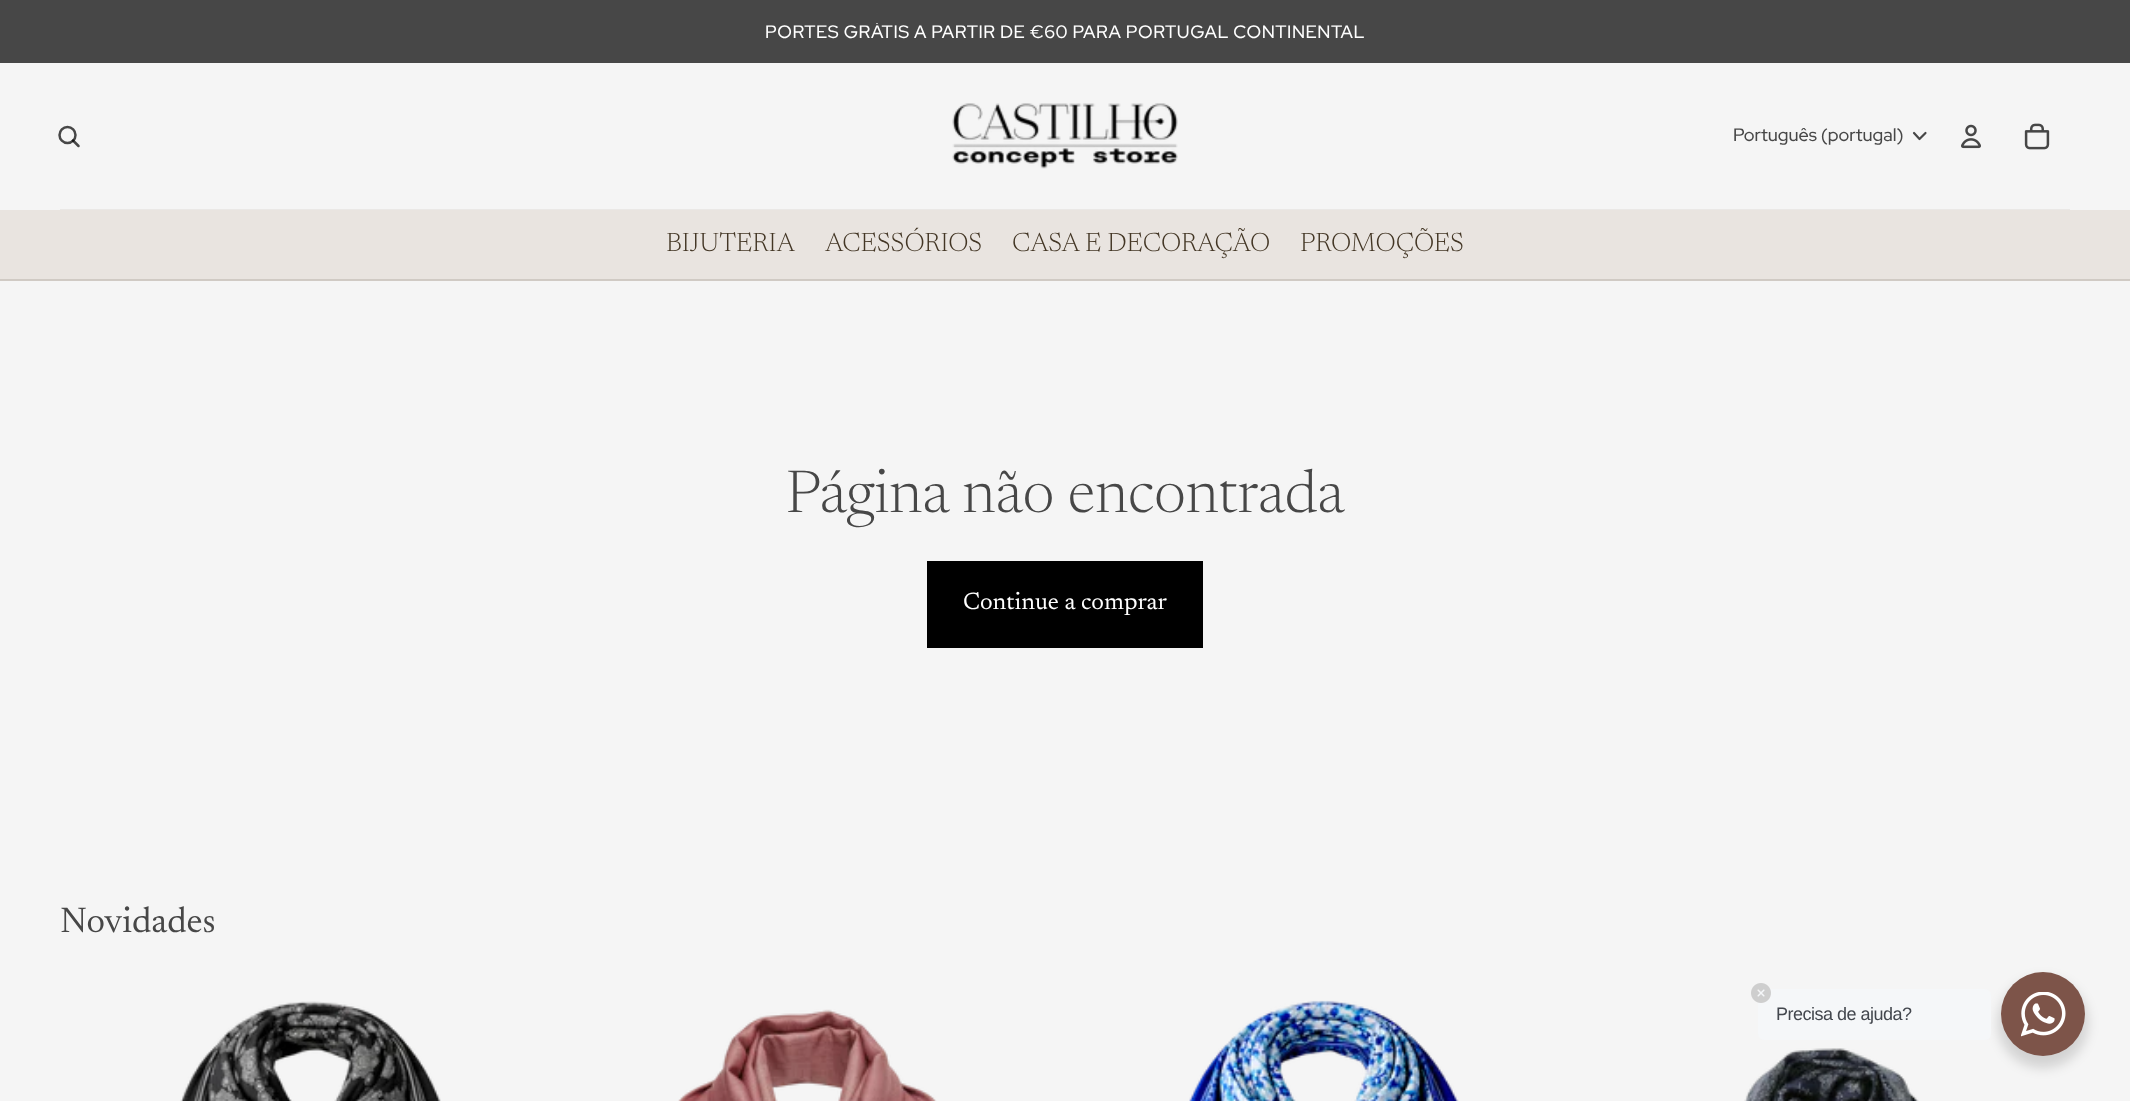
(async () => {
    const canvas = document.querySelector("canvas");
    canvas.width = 2130;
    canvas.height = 1101;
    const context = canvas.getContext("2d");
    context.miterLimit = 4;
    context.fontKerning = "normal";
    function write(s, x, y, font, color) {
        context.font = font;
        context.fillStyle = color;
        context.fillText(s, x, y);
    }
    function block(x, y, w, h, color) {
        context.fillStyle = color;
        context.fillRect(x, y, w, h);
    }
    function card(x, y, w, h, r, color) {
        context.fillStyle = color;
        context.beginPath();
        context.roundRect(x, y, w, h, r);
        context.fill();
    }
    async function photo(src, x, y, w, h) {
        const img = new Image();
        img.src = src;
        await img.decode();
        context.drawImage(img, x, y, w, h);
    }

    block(0, 0, 2130, 1101, "rgb(245, 245, 245)");
    block(0, 0, 2130, 63, "rgb(71, 71, 71)");
    context.save();
    context.beginPath();
    context.rect(555, 23, 1020, 18);
    context.clip();
    context.letterSpacing = "0.55px";
    write("PORTES GRÁTIS A PARTIR DE €60 PARA PORTUGAL CONTINENTAL", 765, 38, "500 18px Red Hat Display", "rgb(255, 255, 255)");
    context.restore();
    block(60, 209, 2010, 1, "rgb(234, 232, 230)");
    context.beginPath();
    context.arc(67.5, 135, 8, 0, Math.PI * 2);
    context.strokeStyle = "rgb(71, 71, 71)";
    context.lineWidth = 2.5;
    context.stroke();
    context.beginPath();
    context.moveTo(73, 140.5);
    context.lineTo(78.5, 146);
    context.strokeStyle = "rgba(0, 0, 0, 0.71)";
    context.lineCap = "round";
    context.lineJoin = "round";
    context.stroke();
    await photo("media/1.png", 952, 103, 226, 66);
    write("Português (portugal)", 1733, 141, "500 18px Red Hat Display", "rgb(71, 71, 71)");
    context.beginPath();
    context.moveTo(1925.5, 133);
    context.lineTo(1919.5, 139);
    context.lineTo(1914, 133);
    context.strokeStyle = "rgb(71, 71, 71)";
    context.lineWidth = 2.2;
    context.stroke();
    await photo("media/2.png", 1961, 124, 20, 25);
    await photo("media/3.png", 2024, 123, 26, 27);
    block(0, 210, 2130, 69, "rgb(233, 228, 224)");
    block(0, 279, 2130, 2, "rgb(208, 202, 196)");
    write("BIJUTERIA", 666, 251, "300 27px 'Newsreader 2'", "rgb(67, 54, 37)");
    write("ACESSÓRIOS", 825, 251, "300 27px 'Newsreader 2'", "rgb(67, 54, 37)");
    write("CASA E DECORAÇÃO", 1012, 251, "300 27px 'Newsreader 2'", "rgb(67, 54, 37)");
    write("PROMOÇÕES", 1300, 251, "300 27px 'Newsreader 2'", "rgb(67, 54, 37)");
    write("Página não encontrada", 786, 512, "300 60px Newsreader", "rgb(71, 71, 71)");
    block(927, 561, 276, 87, "rgb(0, 0, 0)");
    write("Continue a comprar", 963, 609, "24px Newsreader", "rgb(255, 255, 255)");
    write("Novidades", 60, 932, "36px 'Newsreader 2'", "rgb(71, 71, 71)");
    await photo("media/4.png", 180, 1001, 261, 100);
    await photo("media/5.png", 678, 1009, 259, 92);
    await photo("media/6.png", 1189, 1000, 270, 101);
    await photo("media/7.png", 1744, 1048, 175, 53);
    context.fillStyle = "rgba(0, 0, 0, 0.14)";
    context.filter = "blur(6px)";
    context.beginPath();
    context.roundRect(1998, 978, 90, 90, 45);
    context.fill();
    context.filter = "none";
    card(1758, 989, 233, 51, 6, "rgb(245, 247, 249)");
    await photo("media/8.png", 1751, 983, 20, 20);
    context.letterSpacing = "-0.5px";
    write("Precisa de ajuda?", 1776, 1020, "18px Liberation Sans", "rgb(67, 71, 78)");
    context.fillStyle = "rgb(125, 84, 73)";
    context.beginPath();
    context.arc(2043, 1014, 42, 0, Math.PI * 2);
    context.fill();
    await photo("media/9.png", 2021, 992, 45, 45);
})();
